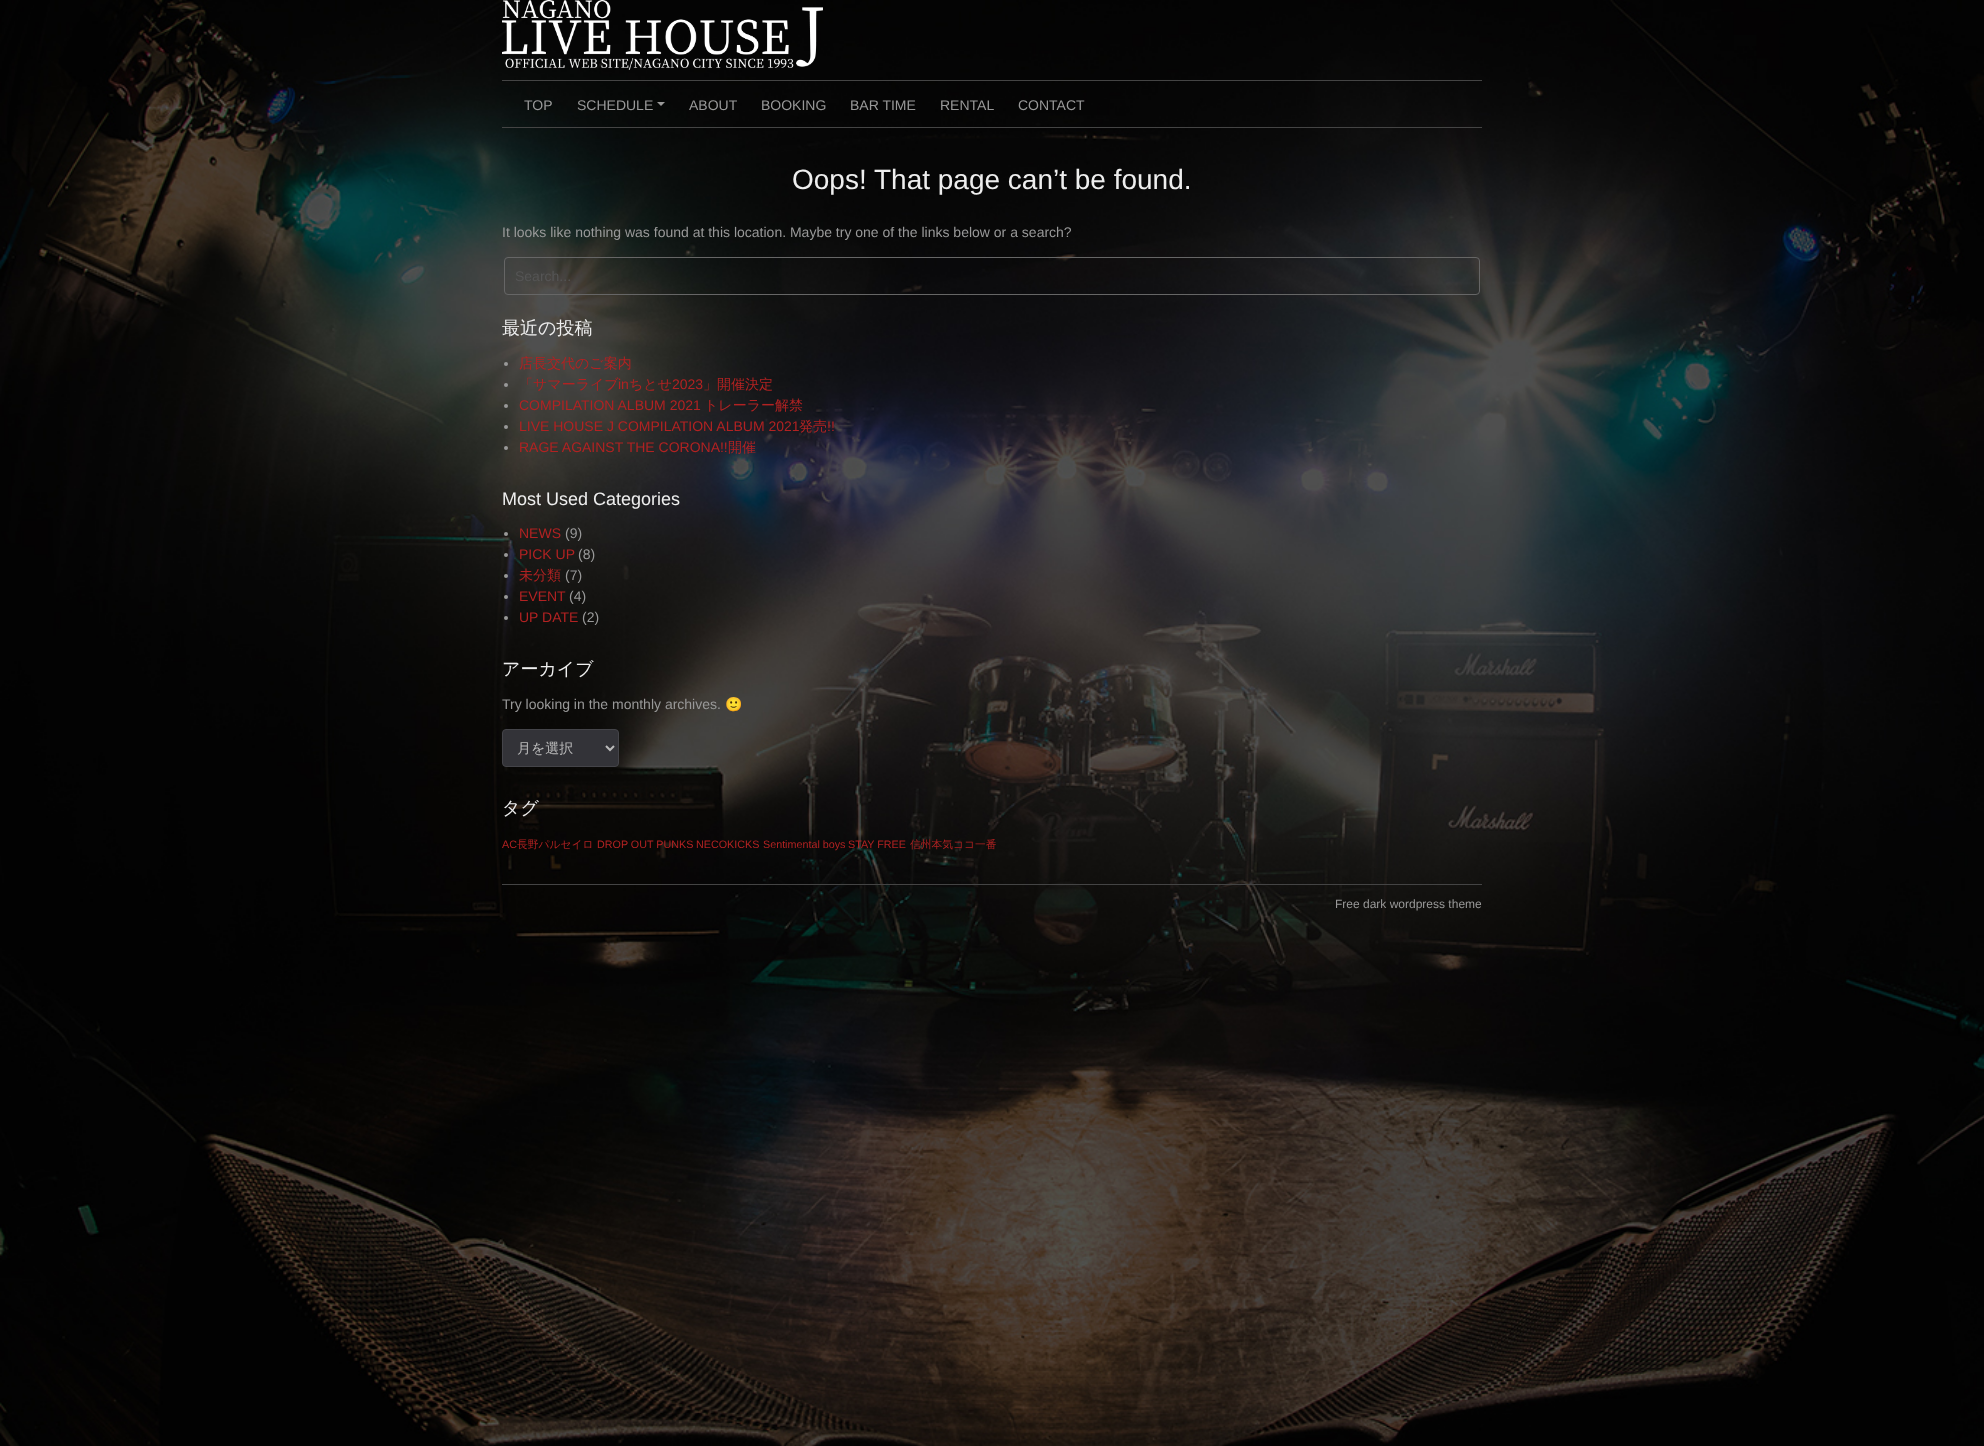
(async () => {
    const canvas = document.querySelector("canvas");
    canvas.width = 1984;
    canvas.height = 1446;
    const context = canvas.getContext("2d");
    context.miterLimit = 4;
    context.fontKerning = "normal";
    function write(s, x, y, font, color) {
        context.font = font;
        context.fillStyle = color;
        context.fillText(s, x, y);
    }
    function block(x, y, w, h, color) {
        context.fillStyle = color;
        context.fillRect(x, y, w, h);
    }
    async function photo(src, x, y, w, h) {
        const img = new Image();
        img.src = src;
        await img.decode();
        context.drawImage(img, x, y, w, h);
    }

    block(0, 0, 1984, 1446, "rgb(255, 255, 255)");
    await photo("media/1.png", 0, 0, 1984, 1446);
    await photo("media/2.png", 502, 0, 321, 70);
    block(502, 80, 980, 1, "rgb(68, 68, 68)");
    block(502, 127, 980, 1, "rgb(68, 68, 68)");
    write("TOP", 524, 110, "14px Liberation Sans", "rgb(153, 153, 153)");
    write("SCHEDULE", 577, 110, "14px Liberation Sans", "rgb(153, 153, 153)");
    context.beginPath();
    context.moveTo(657, 102);
    context.lineTo(665, 102);
    context.lineTo(661, 106);
    context.closePath();
    context.fill();
    write("ABOUT", 689, 110, "14px Liberation Sans", "rgb(153, 153, 153)");
    write("BOOKING", 761, 110, "14px Liberation Sans", "rgb(153, 153, 153)");
    write("BAR TIME", 850, 110, "14px Liberation Sans", "rgb(153, 153, 153)");
    write("RENTAL", 940, 110, "14px Liberation Sans", "rgb(153, 153, 153)");
    write("CONTACT", 1018, 110, "14px Liberation Sans", "rgb(153, 153, 153)");
    write("Oops! That page can’t be found.", 792, 189, "28px Liberation Sans", "rgb(238, 238, 238)");
    write("It looks like nothing was found at this location. Maybe try one of the links below or a search?", 502, 237, "14px Liberation Sans", "rgb(153, 153, 153)");
    context.beginPath();
    context.roundRect(504.5, 257.5, 975, 37, 3.5);
    context.strokeStyle = "rgb(102, 102, 102)";
    context.stroke();
    write("Search...", 515, 281, "14px Liberation Sans", "rgb(85, 85, 85)");
    write("最近の投稿", 502, 334, "500 18px WenQuanYi Zen Hei", "rgb(238, 238, 238)");
    context.fillStyle = "rgb(153, 153, 153)";
    context.beginPath();
    context.arc(506, 364, 2, 0, Math.PI * 2);
    context.fill();
    write("店長交代のご案内", 519, 368, "500 14px WenQuanYi Zen Hei", "rgb(178, 34, 34)");
    context.fillStyle = "rgb(153, 153, 153)";
    context.beginPath();
    context.arc(506, 385, 2, 0, Math.PI * 2);
    context.fill();
    write("「サマーライブ", 519, 389, "500 14px WenQuanYi Zen Hei", "rgb(178, 34, 34)");
    write("in", 618, 389, "14px Liberation Sans", "rgb(178, 34, 34)");
    write("ちとせ", 629, 389, "500 14px WenQuanYi Zen Hei", "rgb(178, 34, 34)");
    write("2023", 672, 389, "14px Liberation Sans", "rgb(178, 34, 34)");
    write("」開催決定", 703, 389, "500 14px WenQuanYi Zen Hei", "rgb(178, 34, 34)");
    context.fillStyle = "rgb(153, 153, 153)";
    context.beginPath();
    context.arc(506, 406, 2, 0, Math.PI * 2);
    context.fill();
    write("COMPILATION ALBUM 2021", 519, 410, "14px Liberation Sans", "rgb(178, 34, 34)");
    write("トレーラー解禁", 704, 410, "500 14px WenQuanYi Zen Hei", "rgb(178, 34, 34)");
    context.fillStyle = "rgb(153, 153, 153)";
    context.beginPath();
    context.arc(506, 427, 2, 0, Math.PI * 2);
    context.fill();
    write("LIVE HOUSE J COMPILATION ALBUM 2021", 519, 431, "14px Liberation Sans", "rgb(178, 34, 34)");
    write("発売", 799, 431, "500 14px WenQuanYi Zen Hei", "rgb(178, 34, 34)");
    write("!!", 827, 431, "14px Liberation Sans", "rgb(178, 34, 34)");
    context.fillStyle = "rgb(153, 153, 153)";
    context.beginPath();
    context.arc(506, 448, 2, 0, Math.PI * 2);
    context.fill();
    write("RAGE AGAINST THE CORONA!!", 519, 452, "14px Liberation Sans", "rgb(178, 34, 34)");
    write("開催", 728, 452, "500 14px WenQuanYi Zen Hei", "rgb(178, 34, 34)");
    write("Most Used Categories", 502, 505, "18px Liberation Sans", "rgb(238, 238, 238)");
    context.fillStyle = "rgb(153, 153, 153)";
    context.beginPath();
    context.arc(506, 534, 2, 0, Math.PI * 2);
    context.fill();
    write("NEWS", 519, 538, "14px Liberation Sans", "rgb(178, 34, 34)");
    write("(9)", 565, 538, "14px Liberation Sans", "rgb(153, 153, 153)");
    context.beginPath();
    context.arc(506, 555, 2, 0, Math.PI * 2);
    context.fill();
    write("PICK UP", 519, 559, "14px Liberation Sans", "rgb(178, 34, 34)");
    write("(8)", 578, 559, "14px Liberation Sans", "rgb(153, 153, 153)");
    context.beginPath();
    context.arc(506, 576, 2, 0, Math.PI * 2);
    context.fill();
    write("未分類", 519, 580, "500 14px WenQuanYi Zen Hei", "rgb(178, 34, 34)");
    write("(7)", 565, 580, "14px Liberation Sans", "rgb(153, 153, 153)");
    context.beginPath();
    context.arc(506, 597, 2, 0, Math.PI * 2);
    context.fill();
    write("EVENT", 519, 601, "14px Liberation Sans", "rgb(178, 34, 34)");
    write("(4)", 569, 601, "14px Liberation Sans", "rgb(153, 153, 153)");
    context.beginPath();
    context.arc(506, 618, 2, 0, Math.PI * 2);
    context.fill();
    write("UP DATE", 519, 622, "14px Liberation Sans", "rgb(178, 34, 34)");
    write("(2)", 582, 622, "14px Liberation Sans", "rgb(153, 153, 153)");
    write("アーカイブ", 502, 675, "500 18px WenQuanYi Zen Hei", "rgb(238, 238, 238)");
    write("Try looking in the monthly archives.", 502, 709, "14px Liberation Sans", "rgb(153, 153, 153)");
    write("🙂", 725, 709, "14px Noto Color Emoji", "rgb(153, 153, 153)");
    context.fillStyle = "rgb(51, 51, 56)";
    context.beginPath();
    context.roundRect(502.5, 729.5, 116, 37, 3.5);
    context.fill();
    context.strokeStyle = "rgb(68, 68, 73)";
    context.stroke();
    context.beginPath();
    context.moveTo(606, 746);
    context.lineTo(610, 750);
    context.lineTo(614, 746);
    context.strokeStyle = "rgb(187, 187, 187)";
    context.lineWidth = 2;
    context.stroke();
    write("月を選択", 517, 753, "500 14px WenQuanYi Zen Hei", "rgb(187, 187, 187)");
    write("タグ", 502, 814, "500 18px WenQuanYi Zen Hei", "rgb(238, 238, 238)");
    write("AC", 502, 848, "10.75px Liberation Sans", "rgb(178, 34, 34)");
    write("長野パルセイロ", 517, 848, "500 10.75px WenQuanYi Zen Hei", "rgb(178, 34, 34)");
    write("DROP OUT PUNKS", 597, 848, "10.75px Liberation Sans", "rgb(178, 34, 34)");
    write("NECOKICKS", 696, 848, "10.75px Liberation Sans", "rgb(178, 34, 34)");
    write("Sentimental boys", 763, 848, "10.75px Liberation Sans", "rgb(178, 34, 34)");
    write("STAY FREE", 848, 848, "10.75px Liberation Sans", "rgb(178, 34, 34)");
    write("信州本気ココ一番", 910, 848, "500 10.75px WenQuanYi Zen Hei", "rgb(178, 34, 34)");
    block(502, 884, 980, 1, "rgb(68, 68, 68)");
    write("Free dark wordpress theme", 1335, 908, "12px Liberation Sans", "rgb(153, 153, 153)");
})();
